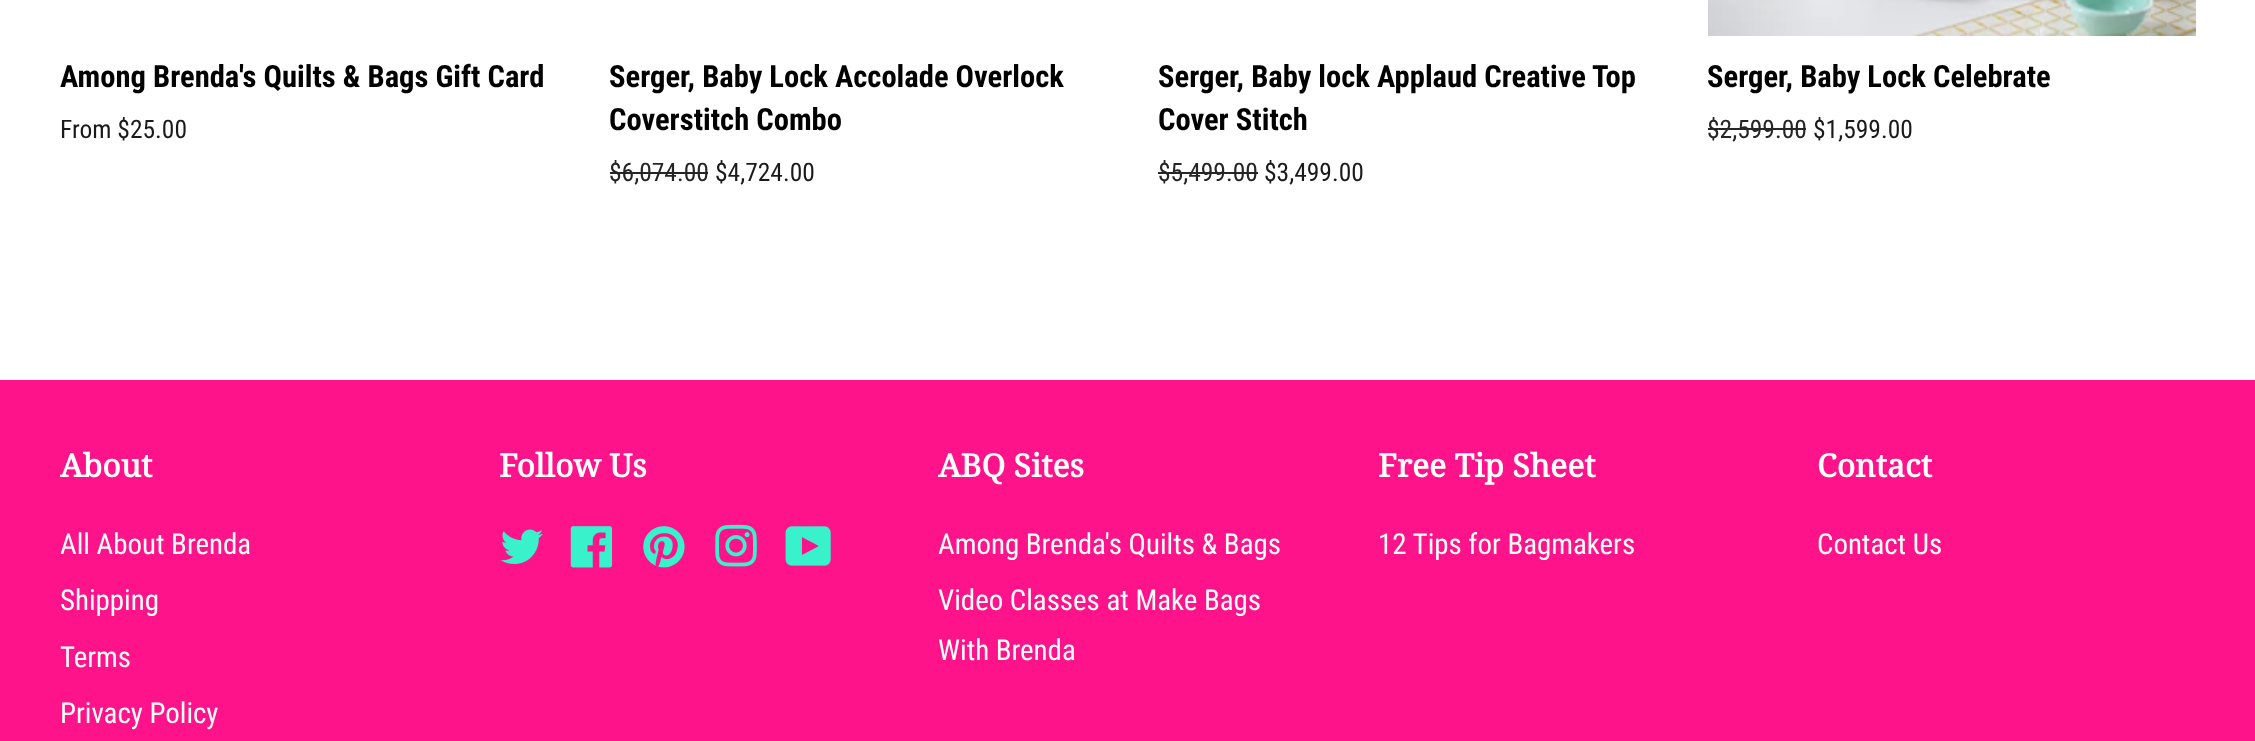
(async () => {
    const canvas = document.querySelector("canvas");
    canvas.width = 2255;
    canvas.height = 741;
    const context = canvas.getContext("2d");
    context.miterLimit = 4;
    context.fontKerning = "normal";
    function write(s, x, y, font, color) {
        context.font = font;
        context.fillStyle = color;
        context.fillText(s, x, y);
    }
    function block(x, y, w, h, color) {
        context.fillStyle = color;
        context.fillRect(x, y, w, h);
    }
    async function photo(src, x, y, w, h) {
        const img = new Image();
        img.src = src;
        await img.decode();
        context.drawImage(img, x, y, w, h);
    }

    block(0, 0, 2255, 741, "rgb(255, 255, 255)");
    write("Among Brenda's Quilts & Bags Gift Card", 60, 87, "bold 30.6px Roboto Condensed", "rgb(0, 0, 0)");
    write("From $25.00", 60, 138, "25.5px Roboto Condensed", "rgb(26, 26, 26)");
    write("Serger, Baby Lock Accolade Overlock", 609, 87, "bold 30.6px Roboto Condensed", "rgb(0, 0, 0)");
    write("Coverstitch Combo", 609, 130, "bold 30.6px Roboto Condensed", "rgb(0, 0, 0)");
    write("$6,074.00", 609, 181, "25.5px Roboto Condensed", "rgb(37, 37, 37)");
    block(610, 172, 98, 2, "rgb(37, 37, 37)");
    write("$4,724.00", 715, 181, "25.5px Roboto Condensed", "rgb(26, 26, 26)");
    write("Serger, Baby lock Applaud Creative Top", 1158, 87, "bold 30.6px Roboto Condensed", "rgb(0, 0, 0)");
    write("Cover Stitch", 1158, 130, "bold 30.6px Roboto Condensed", "rgb(0, 0, 0)");
    write("$5,499.00", 1158, 181, "25.5px Roboto Condensed", "rgb(37, 37, 37)");
    block(1158, 172, 100, 2, "rgb(37, 37, 37)");
    write("$3,499.00", 1264, 181, "25.5px Roboto Condensed", "rgb(26, 26, 26)");
    await photo("media/1.png", 1708, 0, 488, 36);
    write("Serger, Baby Lock Celebrate", 1707, 87, "bold 30.6px Roboto Condensed", "rgb(0, 0, 0)");
    write("$2,599.00", 1707, 138, "25.5px Roboto Condensed", "rgb(37, 37, 37)");
    block(1708, 128, 98, 2, "rgb(37, 37, 37)");
    write("$1,599.00", 1813, 138, "25.5px Roboto Condensed", "rgb(26, 26, 26)");
    block(0, 380, 2255, 361, "rgb(255, 19, 139)");
    write("About", 60, 477, "bold 32px Noto Serif", "rgb(255, 255, 255)");
    write("All About Brenda", 60, 554, "28.9px Roboto Condensed", "rgb(255, 255, 255)");
    write("Shipping", 60, 610, "28.9px Roboto Condensed", "rgb(255, 255, 255)");
    write("Terms", 60, 667, "28.9px Roboto Condensed", "rgb(255, 255, 255)");
    write("Privacy Policy", 60, 723, "28.9px Roboto Condensed", "rgb(255, 255, 255)");
    write("Follow Us", 499, 477, "bold 32px Noto Serif", "rgb(255, 255, 255)");
    await photo("media/2.png", 500, 529, 43, 35);
    await photo("media/3.png", 570, 526, 43, 42);
    await photo("media/4.png", 643, 526, 42, 42);
    await photo("media/5.png", 715, 524, 42, 43);
    await photo("media/6.png", 785, 526, 46, 40);
    write("ABQ Sites", 938, 477, "bold 32px Noto Serif", "rgb(255, 255, 255)");
    write("Among Brenda's Quilts & Bags", 938, 554, "28.9px Roboto Condensed", "rgb(255, 255, 255)");
    write("Video Classes at Make Bags", 938, 610, "28.9px Roboto Condensed", "rgb(255, 255, 255)");
    write("With Brenda", 938, 660, "28.9px Roboto Condensed", "rgb(255, 255, 255)");
    write("Free Tip Sheet", 1378, 477, "bold 32px Noto Serif", "rgb(255, 255, 255)");
    write("12 Tips for Bagmakers", 1378, 554, "28.9px Roboto Condensed", "rgb(255, 255, 255)");
    write("Contact", 1817, 477, "bold 32px Noto Serif", "rgb(255, 255, 255)");
    write("Contact Us", 1817, 554, "28.9px Roboto Condensed", "rgb(255, 255, 255)");
})();
